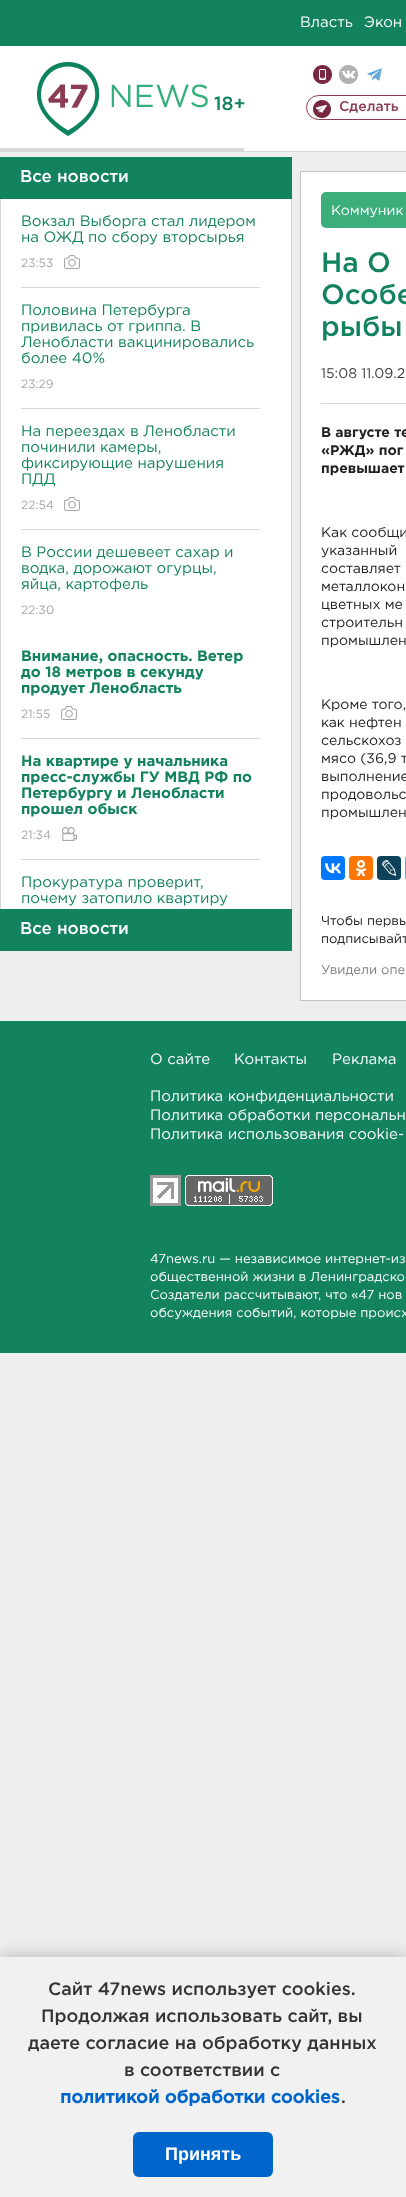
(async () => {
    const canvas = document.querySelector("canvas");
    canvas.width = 406;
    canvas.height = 2197;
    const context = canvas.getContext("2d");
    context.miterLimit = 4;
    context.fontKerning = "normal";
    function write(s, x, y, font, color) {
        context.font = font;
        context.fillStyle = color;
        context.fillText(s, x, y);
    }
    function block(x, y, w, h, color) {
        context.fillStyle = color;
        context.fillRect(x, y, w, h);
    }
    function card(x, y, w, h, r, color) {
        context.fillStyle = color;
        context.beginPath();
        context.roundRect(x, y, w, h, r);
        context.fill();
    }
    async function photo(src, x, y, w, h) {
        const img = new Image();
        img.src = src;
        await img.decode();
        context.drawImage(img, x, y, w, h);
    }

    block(0, 0, 406, 2197, "rgb(238, 238, 238)");
    block(0, 0, 406, 46, "rgb(19, 130, 95)");
    write("Власть", 300, 27, "15px Gotham", "rgb(255, 255, 255)");
    write("Экон", 364, 27, "15px Gotham", "rgb(255, 255, 255)");
    block(0, 46, 406, 105, "rgb(255, 255, 255)");
    block(0, 151, 406, 1, "rgb(218, 217, 217)");
    block(0, 148, 244, 3, "rgb(218, 217, 217)");
    await photo("media/1.png", 37, 62, 171, 74);
    write("18+", 214, 110, "500 19px Gotham", "rgb(19, 130, 95)");
    await photo("media/2.png", 313, 65, 19, 19);
    await photo("media/3.png", 339, 65, 19, 19);
    await photo("media/4.png", 367, 68, 15, 13);
    await photo("media/5.png", 313, 100, 18, 18);
    context.beginPath();
    context.roundRect(306.5, 95.5, 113, 24, 12);
    context.strokeStyle = "rgb(140, 59, 82)";
    context.stroke();
    write("Сделать", 339, 111, "500 14px Gotham", "rgb(140, 59, 82)");
    block(0, 157, 292, 42, "rgb(19, 130, 95)");
    write("Все новости", 20, 182, "500 17px Gotham", "rgb(255, 255, 255)");
    block(1, 199, 290, 710, "rgb(255, 255, 255)");
    block(291, 199, 1, 710, "rgb(214, 214, 214)");
    block(0, 199, 1, 710, "rgb(214, 214, 214)");
    block(21, 287, 239, 1, "rgb(216, 216, 216)");
    write("Вокзал Выборга стал лидером", 21, 226, "15px Gotham", "rgb(19, 130, 95)");
    write("на ОЖД по сбору вторсырья", 21, 242, "15px Gotham", "rgb(19, 130, 95)");
    write("23:53", 21, 267, "12px Gotham", "rgb(167, 167, 167)");
    await photo("media/6.png", 64, 255, 16, 14);
    block(21, 408, 239, 1, "rgb(216, 216, 216)");
    write("Половина Петербурга", 21, 315, "15px Gotham", "rgb(19, 130, 95)");
    write("привилась от гриппа. В", 21, 331, "15px Gotham", "rgb(19, 130, 95)");
    write("Ленобласти вакцинировались", 21, 347, "15px Gotham", "rgb(19, 130, 95)");
    write("более 40%", 21, 363, "15px Gotham", "rgb(19, 130, 95)");
    write("23:29", 21, 388, "12px Gotham", "rgb(167, 167, 167)");
    block(21, 529, 239, 1, "rgb(216, 216, 216)");
    write("На переездах в Ленобласти", 21, 436, "15px Gotham", "rgb(19, 130, 95)");
    write("починили камеры,", 21, 452, "15px Gotham", "rgb(19, 130, 95)");
    write("фиксирующие нарушения", 21, 468, "15px Gotham", "rgb(19, 130, 95)");
    write("ПДД", 21, 484, "15px Gotham", "rgb(19, 130, 95)");
    write("22:54", 21, 509, "12px Gotham", "rgb(167, 167, 167)");
    await photo("media/6.png", 64, 497, 16, 14);
    write("В России дешевеет сахар и", 21, 557, "15px Gotham", "rgb(19, 130, 95)");
    write("водка, дорожают огурцы,", 21, 573, "15px Gotham", "rgb(19, 130, 95)");
    write("яйца, картофель", 21, 589, "15px Gotham", "rgb(19, 130, 95)");
    write("22:30", 21, 614, "12px Gotham", "rgb(167, 167, 167)");
    block(21, 738, 239, 1, "rgb(216, 216, 216)");
    write("Внимание, опасность. Ветер", 21, 661, "bold 15px Gotham", "rgb(19, 130, 95)");
    write("до 18 метров в секунду", 21, 677, "bold 15px Gotham", "rgb(19, 130, 95)");
    write("продует Ленобласть", 21, 693, "bold 15px Gotham", "rgb(19, 130, 95)");
    write("21:55", 21, 718, "12px Gotham", "rgb(167, 167, 167)");
    await photo("media/6.png", 61, 706, 16, 14);
    block(21, 859, 239, 1, "rgb(216, 216, 216)");
    write("На квартире у начальника", 21, 766, "bold 15px Gotham", "rgb(19, 130, 95)");
    write("пресс-службы ГУ МВД РФ по", 21, 782, "bold 15px Gotham", "rgb(19, 130, 95)");
    write("Петербургу и Ленобласти", 21, 798, "bold 15px Gotham", "rgb(19, 130, 95)");
    write("прошел обыск", 21, 814, "bold 15px Gotham", "rgb(19, 130, 95)");
    write("21:34", 21, 839, "12px Gotham", "rgb(167, 167, 167)");
    await photo("media/7.png", 62, 827, 15, 14);
    write("Прокуратура проверит,", 21, 887, "15px Gotham", "rgb(19, 130, 95)");
    write("почему затопило квартиру", 21, 903, "15px Gotham", "rgb(19, 130, 95)");
    block(0, 909, 292, 42, "rgb(19, 130, 95)");
    write("Все новости", 20, 934, "500 17px Gotham", "rgb(255, 255, 255)");
    context.beginPath();
    context.rect(300.5, 171.5, 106, 829);
    context.fill();
    context.strokeStyle = "rgb(194, 194, 194)";
    context.stroke();
    block(321, 403, 85, 1, "rgb(218, 217, 217)");
    card(321, 192, 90, 36, 5, "rgb(59, 174, 124)");
    write("Коммуник", 331, 215, "14px Gotham", "rgb(255, 255, 255)");
    write("На О", 321, 272, "500 28px Gotham", "rgb(19, 130, 95)");
    write("Особе", 321, 304, "500 28px Gotham", "rgb(19, 130, 95)");
    write("рыбы", 321, 336, "500 28px Gotham", "rgb(19, 130, 95)");
    write("15:08 11.09.2", 321, 378, "14px Gotham", "rgb(60, 60, 60)");
    write("В августе те", 321, 437, "bold 14px Gotham", "rgb(34, 34, 34)");
    write("«РЖД» пог", 321, 455, "bold 14px Gotham", "rgb(34, 34, 34)");
    write("превышает", 321, 473, "bold 14px Gotham", "rgb(34, 34, 34)");
    write("Как сообщи", 321, 537, "14px Gotham", "rgb(34, 34, 34)");
    write("указанный", 321, 555, "14px Gotham", "rgb(34, 34, 34)");
    write("составляет", 321, 573, "14px Gotham", "rgb(34, 34, 34)");
    write("металлокон", 321, 591, "14px Gotham", "rgb(34, 34, 34)");
    write("цветных ме", 321, 609, "14px Gotham", "rgb(34, 34, 34)");
    write("строительн", 321, 627, "14px Gotham", "rgb(34, 34, 34)");
    write("промышлен", 321, 645, "14px Gotham", "rgb(34, 34, 34)");
    write("Кроме того,", 321, 709, "14px Gotham", "rgb(34, 34, 34)");
    write("как нефтен", 321, 727, "14px Gotham", "rgb(34, 34, 34)");
    write("сельскохоз", 321, 745, "14px Gotham", "rgb(34, 34, 34)");
    write("мясо (36,9 т", 321, 763, "14px Gotham", "rgb(34, 34, 34)");
    write("выполнение", 321, 781, "14px Gotham", "rgb(34, 34, 34)");
    write("продовольс", 321, 799, "14px Gotham", "rgb(34, 34, 34)");
    write("промышлен", 321, 817, "14px Gotham", "rgb(34, 34, 34)");
    card(321, 856, 24, 24, 4, "rgb(0, 119, 255)");
    await photo("media/8.png", 325, 863, 16, 11);
    card(349, 856, 24, 24, 4, "rgb(255, 119, 0)");
    await photo("media/9.png", 355, 860, 12, 16);
    card(377, 856, 24, 24, 4, "rgb(13, 66, 90)");
    await photo("media/10.png", 382, 860, 15, 16);
    card(405, 856, 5, 24, 4, "rgb(100, 169, 220)");
    write("Чтобы первы", 321, 925, "13px Gotham", "rgb(34, 34, 34)");
    write("подписывайт", 321, 943, "13px Gotham", "rgb(34, 34, 34)");
    write("Увидели опе", 321, 974, "13px Gotham", "rgb(128, 128, 128)");
    block(0, 1021, 406, 332, "rgb(19, 130, 95)");
    write("О сайте", 150, 1064, "15px Gotham", "rgb(255, 255, 255)");
    write("Контакты", 234, 1064, "15px Gotham", "rgb(255, 255, 255)");
    write("Реклама", 332, 1064, "15px Gotham", "rgb(255, 255, 255)");
    write("Политика конфиденциальности", 150, 1101, "15px Gotham", "rgb(255, 255, 255)");
    write("Политика обработки персональн", 150, 1120, "15px Gotham", "rgb(255, 255, 255)");
    write("Политика использования cookie-", 150, 1139, "15px Gotham", "rgb(255, 255, 255)");
    await photo("media/11.png", 150, 1175, 31, 31);
    await photo("media/12.png", 185, 1175, 88, 31);
    write("47news.ru — независимое интернет-из", 150, 1263, "13px Gotham", "rgb(255, 255, 255)");
    write("общественной жизни в Ленинградско", 150, 1281, "13px Gotham", "rgb(255, 255, 255)");
    write("Создатели рассчитывают, что «47 нов", 150, 1299, "13px Gotham", "rgb(255, 255, 255)");
    write("обсуждения событий, которые происх", 150, 1317, "13px Gotham", "rgb(255, 255, 255)");
    context.fillStyle = "rgba(0, 0, 0, 0.2)";
    context.filter = "blur(7.5px)";
    context.beginPath();
    context.rect(0, 1955, 406, 240);
    context.fill();
    context.filter = "none";
    block(0, 1957, 406, 240, "rgb(241, 241, 241)");
    write("Сайт 47news использует cookies.", 48, 1995, "500 18px Gotham", "rgb(51, 51, 51)");
    write("Продолжая использовать сайт, вы", 41, 2022, "500 18px Gotham", "rgb(51, 51, 51)");
    write("даете согласие на обработку данных", 28, 2049, "500 18px Gotham", "rgb(51, 51, 51)");
    write("в соответствии с", 124, 2076, "500 18px Gotham", "rgb(51, 51, 51)");
    write("политикой обработки cookies", 60, 2103, "bold 18px 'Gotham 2'", "rgb(0, 102, 204)");
    write(".", 341, 2103, "500 18px Gotham", "rgb(51, 51, 51)");
    card(133, 2132, 140, 45, 6, "rgb(0, 102, 204)");
    write("Принять", 165, 2160, "bold 18px Liberation Sans", "rgb(255, 255, 255)");
})();
